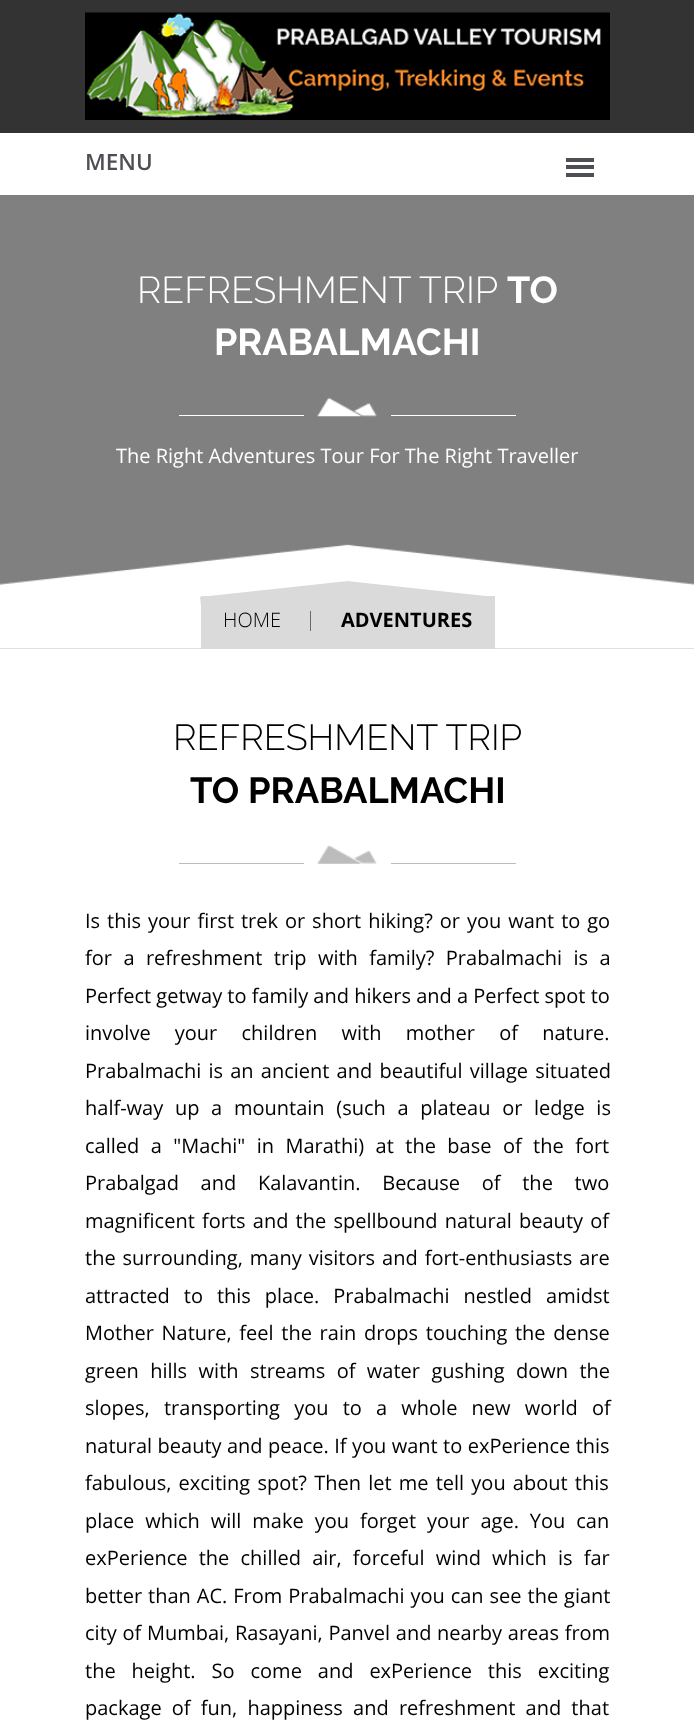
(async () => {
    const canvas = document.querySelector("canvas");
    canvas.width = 694;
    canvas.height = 1732;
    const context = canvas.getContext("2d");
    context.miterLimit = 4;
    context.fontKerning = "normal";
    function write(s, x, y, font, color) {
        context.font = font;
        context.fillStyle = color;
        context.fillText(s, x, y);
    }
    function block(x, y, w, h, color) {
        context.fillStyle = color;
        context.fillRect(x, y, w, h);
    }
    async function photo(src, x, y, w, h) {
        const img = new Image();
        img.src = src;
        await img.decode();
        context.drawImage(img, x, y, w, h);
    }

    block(0, 0, 694, 1732, "rgb(255, 255, 255)");
    block(0, 0, 694, 133, "rgb(51, 51, 51)");
    await photo("media/1.png", 85, 12, 525, 108);
    write("MENU", 85, 170, "600 22.5px Open Sans", "rgb(78, 79, 84)");
    block(566, 158, 28, 4, "rgb(78, 79, 84)");
    block(566, 165, 28, 4, "rgb(78, 79, 84)");
    block(566, 173, 28, 4, "rgb(78, 79, 84)");
    block(0, 195, 694, 454, "rgb(128, 128, 128)");
    write("REFRESHMENT TRIP", 137, 303, "300 37.5px Raleway", "rgb(255, 255, 255)");
    write("TO", 507, 303, "bold 37.5px Raleway", "rgb(255, 255, 255)");
    write("PRABALMACHI", 214, 355, "bold 37.5px Raleway", "rgb(255, 255, 255)");
    block(179, 415, 125, 1, "rgb(255, 255, 255)");
    block(391, 415, 125, 1, "rgb(255, 255, 255)");
    await photo("media/2.png", 317, 397, 60, 20);
    write("The Right Adventures Tour For The Right Traveller", 116, 463, "20px Open Sans", "rgb(255, 255, 255)");
    await photo("media/3.png", 0, 544, 694, 105);
    block(201, 596, 294, 53, "rgb(218, 218, 218)");
    context.beginPath();
    context.moveTo(200, 597);
    context.lineTo(348, 581);
    context.lineTo(350, 599);
    context.lineTo(202, 614);
    context.closePath();
    context.fill();
    write("ADVENTURES", 341, 627, "bold 20px Open Sans", "rgb(0, 0, 0)");
    context.fillStyle = "rgb(218, 218, 218)";
    context.beginPath();
    context.moveTo(347, 581);
    context.lineTo(495, 597);
    context.lineTo(493, 614);
    context.lineTo(345, 599);
    context.closePath();
    context.fill();
    write("HOME", 223, 627, "300 20px Open Sans", "rgb(0, 0, 0)");
    block(310, 611, 1, 20, "rgb(105, 105, 105)");
    write("REFRESHMENT TRIP", 173, 750, "300 36.25px Raleway", "rgb(0, 0, 0)");
    write("TO PRABALMACHI", 190, 803, "bold 36.25px Raleway", "rgb(0, 0, 0)");
    block(179, 863, 125, 1, "rgb(188, 188, 188)");
    block(391, 863, 125, 1, "rgb(188, 188, 188)");
    await photo("media/4.png", 317, 845, 60, 19);
    context.wordSpacing = "1.75px";
    write("Is this your first trek or short hiking? or you want to go", 85, 928, "20px Open Sans", "rgb(0, 0, 0)");
    context.wordSpacing = "6.25px";
    write("for a refreshment trip with family? Prabalmachi is a", 85, 965, "20px Open Sans", "rgb(0, 0, 0)");
    context.wordSpacing = "0px";
    write("Perfect getway to family and hikers and a Perfect spot to", 85, 1003, "20px Open Sans", "rgb(0, 0, 0)");
    context.wordSpacing = "19px";
    write("involve your children with mother of nature.", 85, 1040, "20px Open Sans", "rgb(0, 0, 0)");
    context.wordSpacing = "2px";
    write("Prabalmachi is an ancient and beautiful village situated", 85, 1078, "20px Open Sans", "rgb(0, 0, 0)");
    context.wordSpacing = "6.5px";
    write("half-way up a mountain (such a plateau or ledge is", 85, 1115, "20px Open Sans", "rgb(0, 0, 0)");
    context.wordSpacing = "6.25px";
    write("called a \"Machi\" in Marathi) at the base of the fort", 85, 1153, "20px Open Sans", "rgb(0, 0, 0)");
    context.wordSpacing = "16.5px";
    write("Prabalgad and Kalavantin. Because of the two", 85, 1190, "20px Open Sans", "rgb(0, 0, 0)");
    context.wordSpacing = "2px";
    write("magnificent forts and the spellbound natural beauty of", 85, 1228, "20px Open Sans", "rgb(0, 0, 0)");
    context.wordSpacing = "1.75px";
    write("the surrounding, many visitors and fort-enthusiasts are", 85, 1265, "20px Open Sans", "rgb(0, 0, 0)");
    context.wordSpacing = "8.75px";
    write("attracted to this place. Prabalmachi nestled amidst", 85, 1303, "20px Open Sans", "rgb(0, 0, 0)");
    context.wordSpacing = "2.5px";
    write("Mother Nature, feel the rain drops touching the dense", 85, 1340, "20px Open Sans", "rgb(0, 0, 0)");
    context.wordSpacing = "6.25px";
    write("green hills with streams of water gushing down the", 85, 1378, "20px Open Sans", "rgb(0, 0, 0)");
    context.wordSpacing = "9px";
    write("slopes, transporting you to a whole new world of", 85, 1415, "20px Open Sans", "rgb(0, 0, 0)");
    context.wordSpacing = "0.25px";
    write("natural beauty and peace. If you want to exPerience this", 85, 1453, "20px Open Sans", "rgb(0, 0, 0)");
    context.wordSpacing = "2px";
    write("fabulous, exciting spot? Then let me tell you about this", 85, 1490, "20px Open Sans", "rgb(0, 0, 0)");
    context.wordSpacing = "5.75px";
    write("place which will make you forget your age. You can", 85, 1528, "20px Open Sans", "rgb(0, 0, 0)");
    context.wordSpacing = "6px";
    write("exPerience the chilled air, forceful wind which is far", 85, 1565, "20px Open Sans", "rgb(0, 0, 0)");
    context.wordSpacing = "0.75px";
    write("better than AC. From Prabalmachi you can see the giant", 85, 1603, "20px Open Sans", "rgb(0, 0, 0)");
    context.wordSpacing = "0.5px";
    write("city of Mumbai, Rasayani, Panvel and nearby areas from", 85, 1640, "20px Open Sans", "rgb(0, 0, 0)");
    context.wordSpacing = "10.75px";
    write("the height. So come and exPerience this exciting", 85, 1678, "20px Open Sans", "rgb(0, 0, 0)");
    context.wordSpacing = "5px";
    write("package of fun, happiness and refreshment and that", 85, 1715, "20px Open Sans", "rgb(0, 0, 0)");
})();
